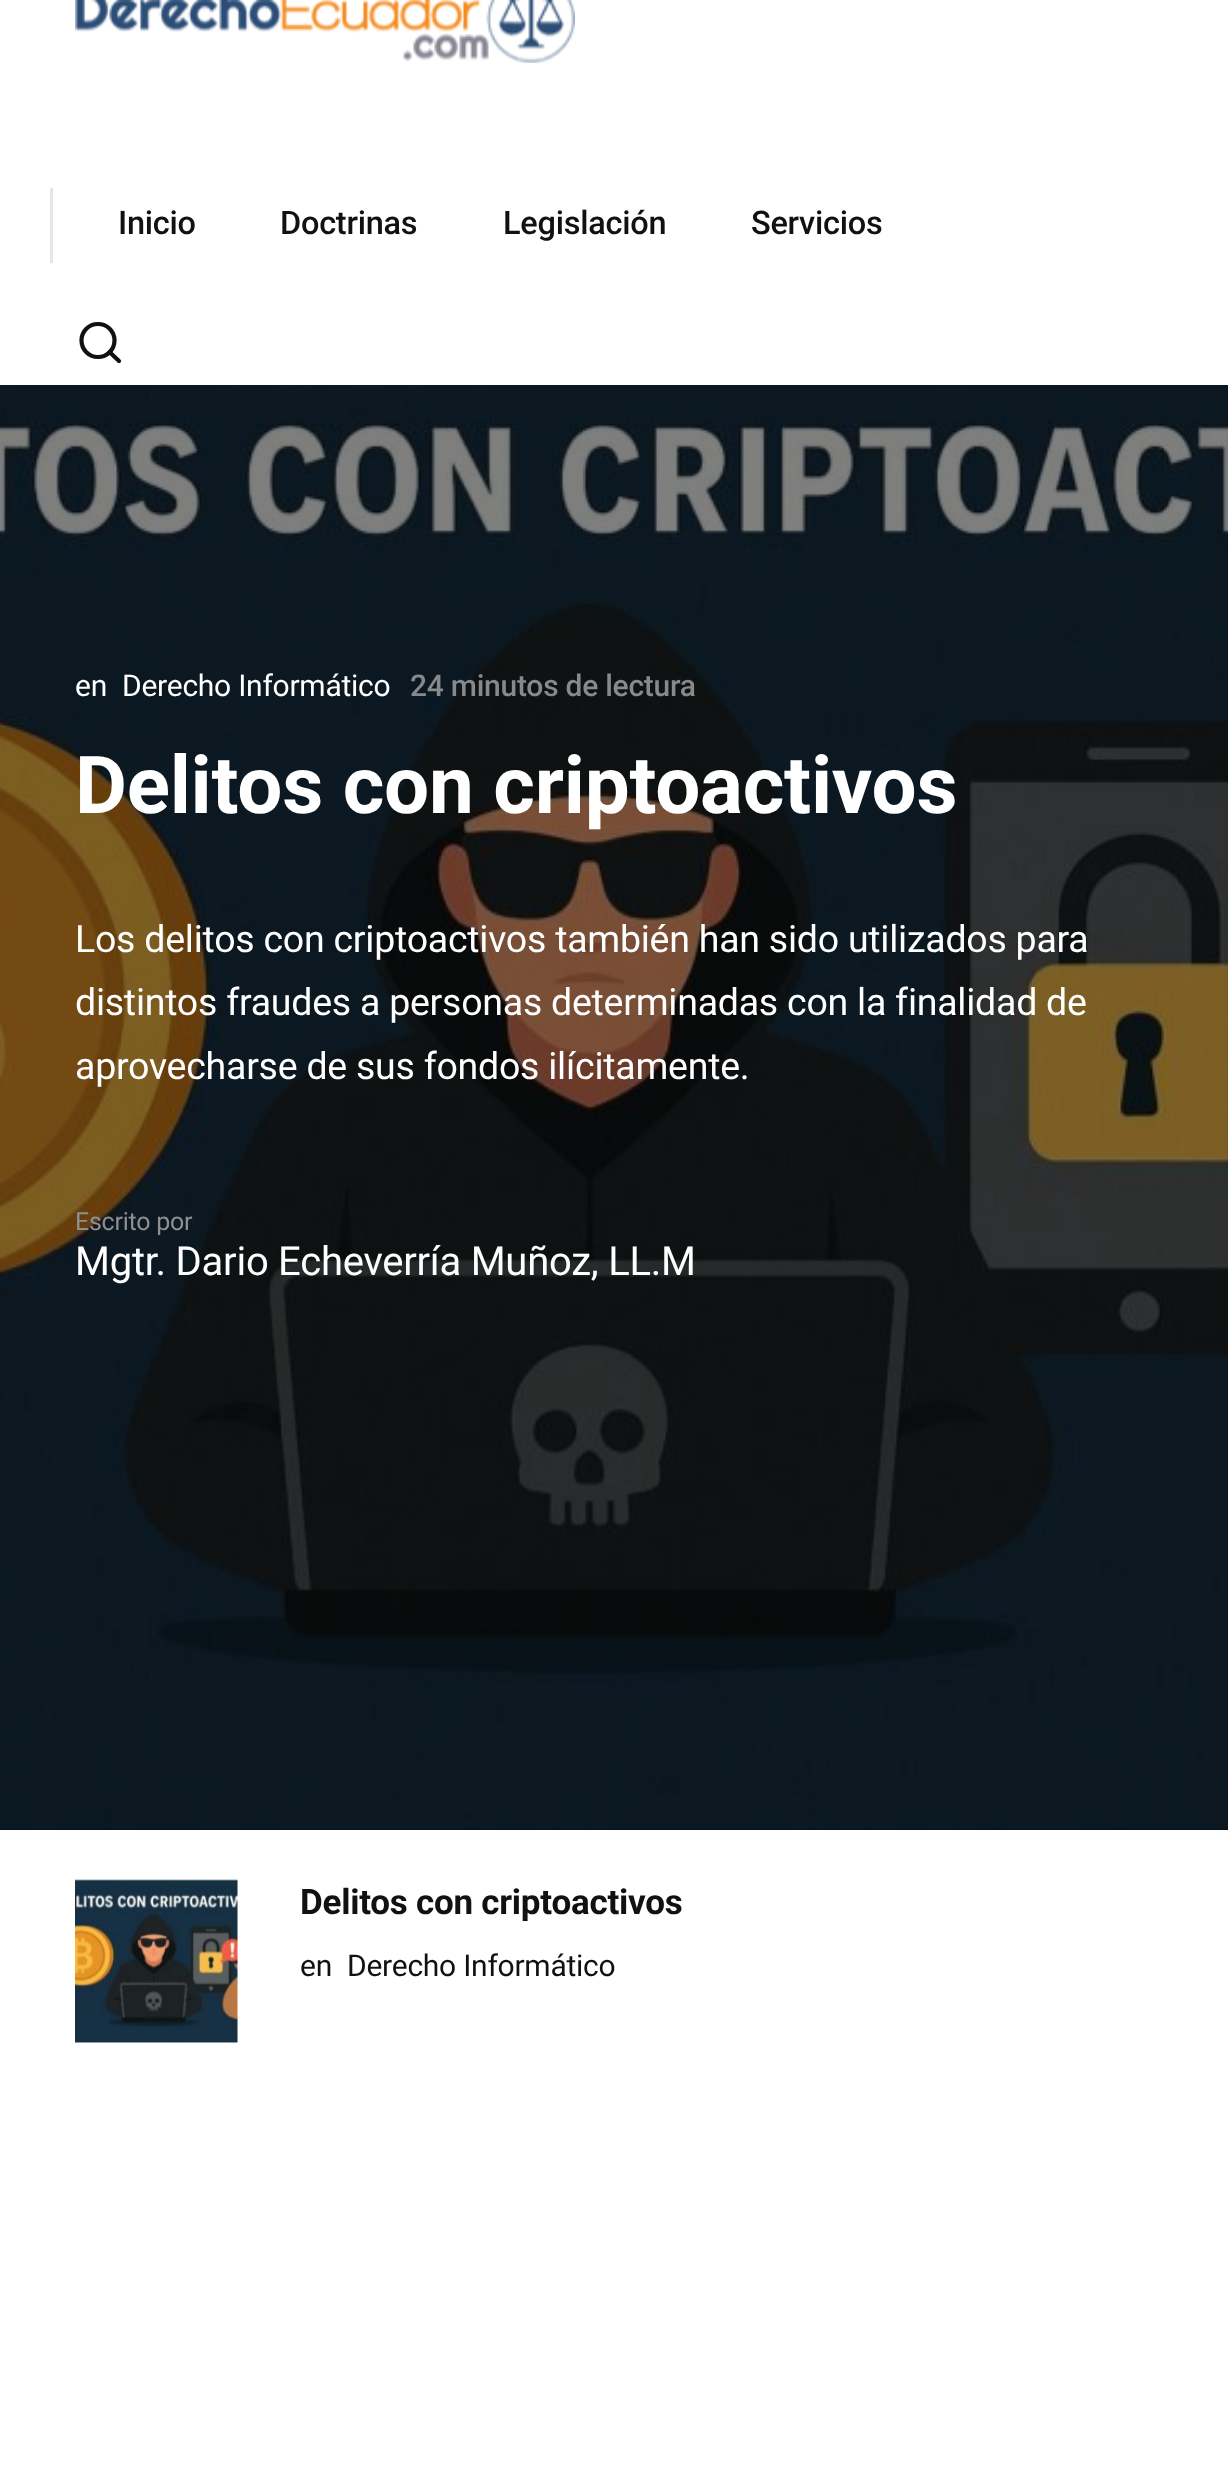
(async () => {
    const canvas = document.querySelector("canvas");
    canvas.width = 1228;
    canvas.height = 2466;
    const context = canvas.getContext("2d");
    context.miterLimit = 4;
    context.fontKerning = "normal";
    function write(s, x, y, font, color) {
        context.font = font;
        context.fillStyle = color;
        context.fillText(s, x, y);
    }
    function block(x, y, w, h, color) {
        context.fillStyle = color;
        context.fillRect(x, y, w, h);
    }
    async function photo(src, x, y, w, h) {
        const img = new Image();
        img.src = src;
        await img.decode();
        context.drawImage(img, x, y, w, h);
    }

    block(0, 0, 1228, 2466, "rgb(255, 255, 255)");
    await photo("media/1.png", 75, 0, 500, 63);
    block(50, 188, 3, 75, "rgb(230, 230, 230)");
    context.letterSpacing = "-0.25px";
    write("Inicio", 118, 234, "500 32.5px Roboto", "rgb(17, 17, 17)");
    write("Doctrinas", 280, 234, "500 32.5px Roboto", "rgb(17, 17, 17)");
    write("Legislación", 503, 234, "500 32.5px Roboto", "rgb(17, 17, 17)");
    write("Servicios", 751, 234, "500 32.5px Roboto", "rgb(17, 17, 17)");
    context.beginPath();
    context.arc(98, 340.5, 16.5, 0, Math.PI * 2);
    context.strokeStyle = "rgb(17, 17, 17)";
    context.lineWidth = 4.2;
    context.stroke();
    context.beginPath();
    context.moveTo(119, 361);
    context.lineTo(109.5, 352);
    context.lineCap = "round";
    context.lineJoin = "round";
    context.stroke();
    block(0, 385, 1228, 1445, "rgb(9, 9, 9)");
    await photo("media/2.png", 0, 385, 1228, 1445);
    write("en", 75, 696, "30px Roboto", "rgb(255, 255, 255)");
    write("Derecho Informático", 122, 696, "30px Roboto", "rgb(255, 255, 255)");
    write("24 minutos de lectura", 410, 696, "500 30px Roboto", "rgb(135, 137, 138)");
    write("Delitos con criptoactivos", 75, 813, "bold 80px Roboto", "rgb(255, 255, 255)");
    write("Los delitos con criptoactivos también han sido utilizados para", 75, 952, "37.5px Roboto", "rgb(255, 255, 255)");
    write("distintos fraudes a personas determinadas con la finalidad de", 75, 1015, "37.5px Roboto", "rgb(255, 255, 255)");
    write("aprovecharse de sus fondos ilícitamente.", 75, 1079, "37.5px Roboto", "rgb(255, 255, 255)");
    write("Escrito por", 75, 1230, "25px Roboto", "rgb(142, 143, 142)");
    write("Mgtr. Dario Echeverría Muñoz, LL.M", 75, 1275, "40px Roboto", "rgb(255, 255, 255)");
    await photo("media/3.png", 75, 1879, 163, 164);
    write("Delitos con criptoactivos", 300, 1914, "bold 35px Roboto", "rgb(17, 17, 17)");
    write("en", 300, 1976, "30px Roboto", "rgb(17, 17, 17)");
    write("Derecho Informático", 347, 1976, "30px Roboto", "rgb(17, 17, 17)");
})();
